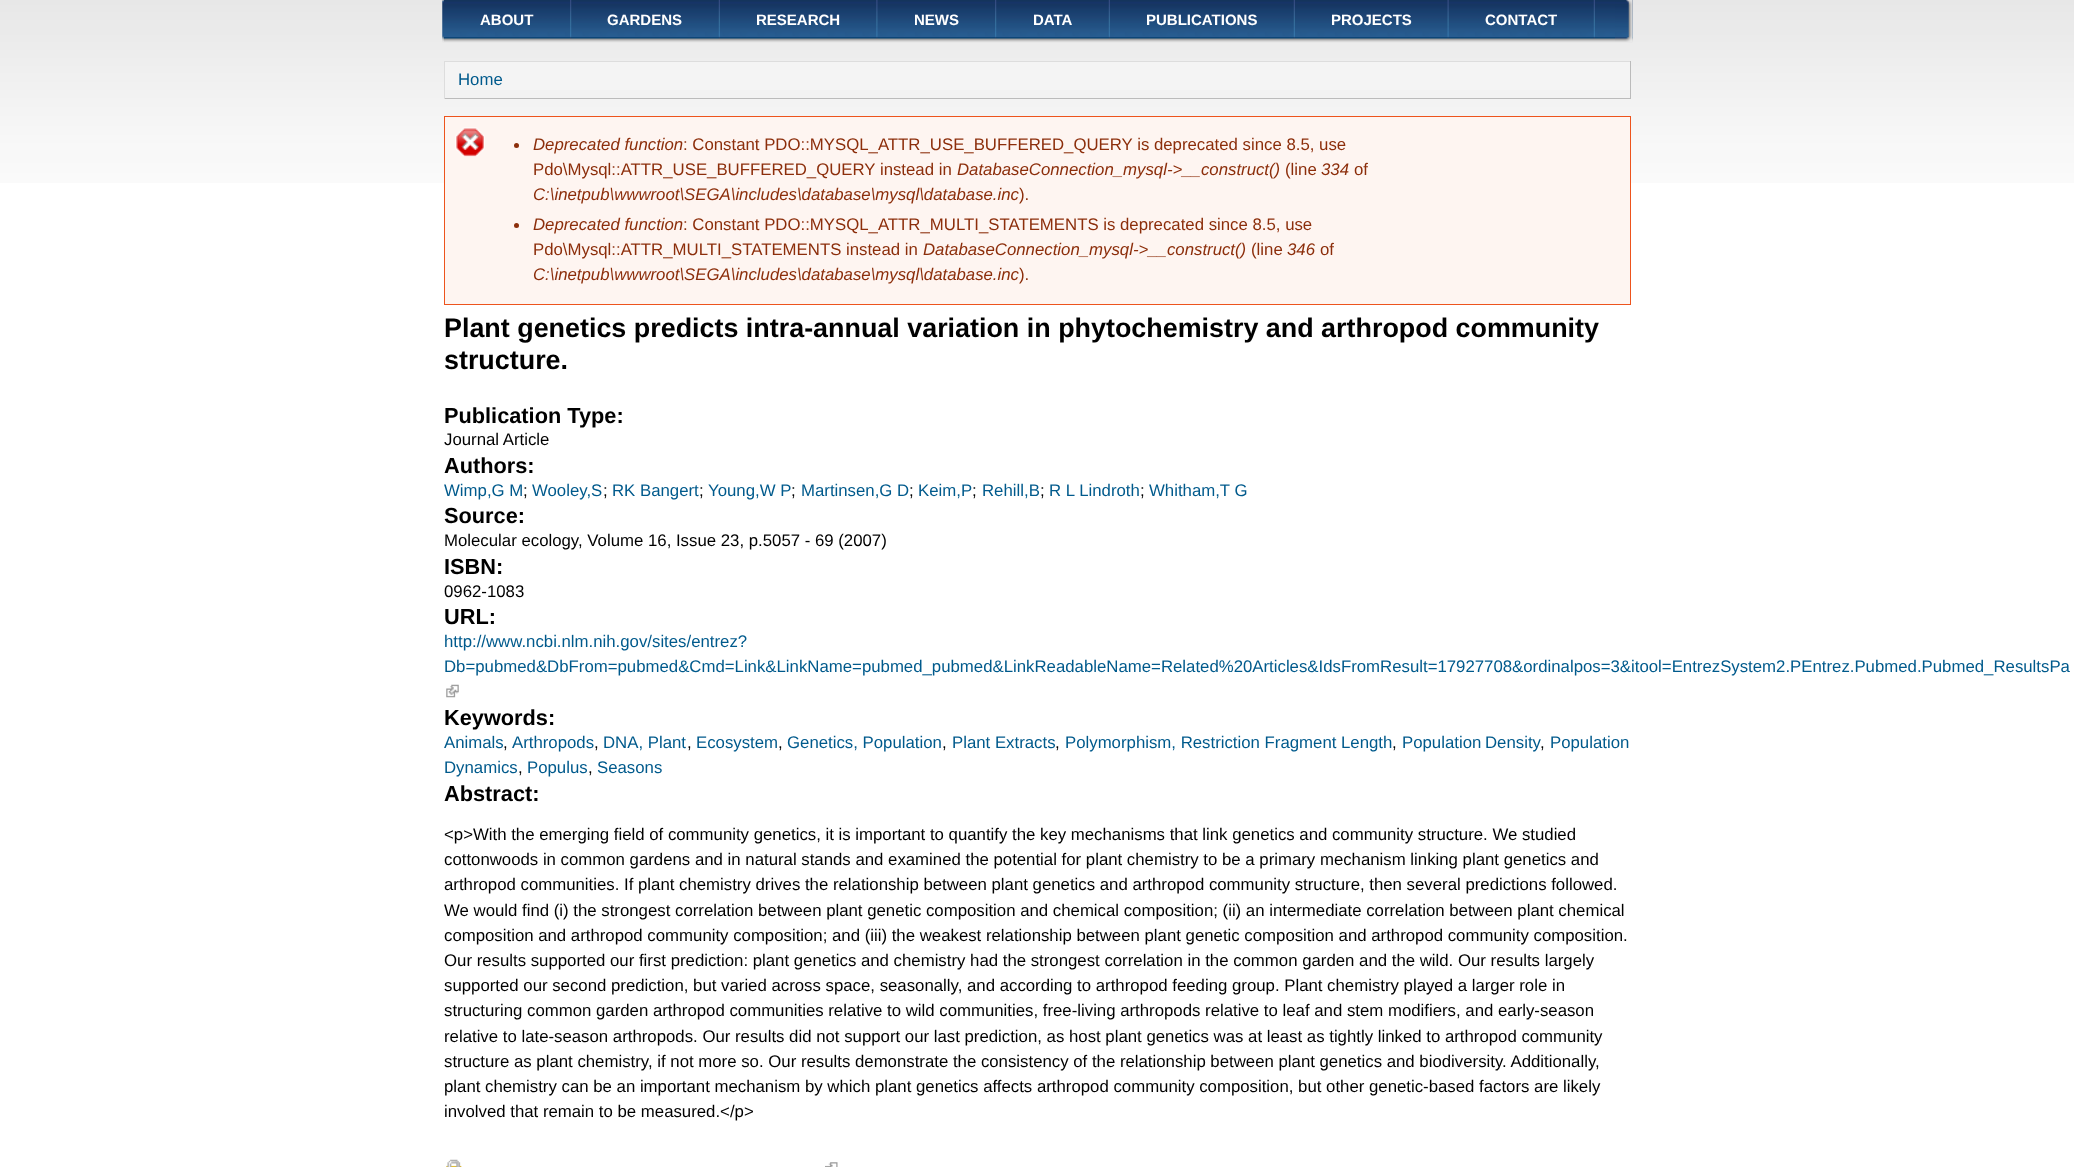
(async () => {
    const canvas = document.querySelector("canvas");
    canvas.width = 2074;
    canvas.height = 1167;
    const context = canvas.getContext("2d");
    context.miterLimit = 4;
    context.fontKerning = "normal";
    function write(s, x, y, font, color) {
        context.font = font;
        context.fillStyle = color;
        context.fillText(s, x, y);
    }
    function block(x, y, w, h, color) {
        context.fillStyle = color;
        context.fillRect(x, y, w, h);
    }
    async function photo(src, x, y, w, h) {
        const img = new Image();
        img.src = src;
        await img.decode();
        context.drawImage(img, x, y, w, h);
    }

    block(0, 0, 2074, 1167, "rgb(255, 255, 255)");
    await photo("media/1.png", 0, 0, 2074, 183);
    await photo("media/2.png", 442, 0, 1191, 43);
    await photo("media/3.png", 442, 0, 2, 42);
    await photo("media/4.png", 443, 0, 1, 41);
    await photo("media/5.png", 570, 0, 2, 39);
    write("ABOUT", 480, 25, "bold 15px Liberation Sans", "rgb(255, 255, 255)");
    await photo("media/6.png", 718, 0, 2, 39);
    write("GARDENS", 607, 25, "bold 15px Liberation Sans", "rgb(255, 255, 255)");
    await photo("media/7.png", 876, 0, 2, 39);
    write("RESEARCH", 756, 25, "bold 15px Liberation Sans", "rgb(255, 255, 255)");
    await photo("media/8.png", 995, 0, 2, 39);
    write("NEWS", 914, 25, "bold 15px Liberation Sans", "rgb(255, 255, 255)");
    await photo("media/9.png", 1108, 0, 2, 39);
    write("DATA", 1033, 25, "bold 15px Liberation Sans", "rgb(255, 255, 255)");
    await photo("media/10.png", 1293, 0, 2, 39);
    write("PUBLICATIONS", 1146, 25, "bold 15px Liberation Sans", "rgb(255, 255, 255)");
    await photo("media/11.png", 1447, 0, 2, 39);
    write("PROJECTS", 1331, 25, "bold 15px Liberation Sans", "rgb(255, 255, 255)");
    await photo("media/10.png", 1593, 0, 2, 39);
    write("CONTACT", 1485, 25, "bold 15px Liberation Sans", "rgb(255, 255, 255)");
    await photo("media/12.png", 1615, 0, 18, 42);
    block(445, 62, 1185, 28, "rgb(244, 244, 244)");
    block(444, 61, 1187, 1, "rgb(221, 221, 221)");
    block(1630, 61, 1, 38, "rgb(187, 187, 187)");
    block(444, 98, 1187, 1, "rgb(187, 187, 187)");
    block(444, 61, 1, 38, "rgb(221, 221, 221)");
    write("Home", 458, 85, "16.8px Liberation Sans", "rgb(0, 90, 140)");
    block(445, 117, 1185, 187, "rgb(254, 245, 241)");
    await photo("media/13.png", 455, 127, 30, 30);
    context.strokeStyle = "rgb(237, 84, 29)";
    context.strokeRect(444.5, 116.5, 1186, 188);
    context.fillStyle = "rgb(140, 46, 11)";
    context.beginPath();
    context.arc(516.5, 145.5, 2.5, 0, Math.PI * 2);
    context.fill();
    write("Deprecated function", 533, 150, "italic 16.8px Liberation Sans", "rgb(140, 46, 11)");
    write(": Constant PDO::MYSQL_ATTR_USE_BUFFERED_QUERY is deprecated since 8.5, use", 683, 150, "16.8px Liberation Sans", "rgb(140, 46, 11)");
    write("Pdo\\Mysql::ATTR_USE_BUFFERED_QUERY instead in", 533, 175, "16.8px Liberation Sans", "rgb(140, 46, 11)");
    write("DatabaseConnection_mysql->__construct()", 957, 175, "italic 16.8px Liberation Sans", "rgb(140, 46, 11)");
    write("(line", 1285, 175, "16.8px Liberation Sans", "rgb(140, 46, 11)");
    write("334", 1321, 175, "italic 16.8px Liberation Sans", "rgb(140, 46, 11)");
    write("of", 1354, 175, "16.8px Liberation Sans", "rgb(140, 46, 11)");
    write("C:\\inetpub\\wwwroot\\SEGA\\includes\\database\\mysql\\database.inc", 533, 200, "italic 16.8px Liberation Sans", "rgb(140, 46, 11)");
    write(").", 1019, 200, "16.8px Liberation Sans", "rgb(140, 46, 11)");
    context.beginPath();
    context.arc(516.5, 225.5, 2.5, 0, Math.PI * 2);
    context.fill();
    write("Deprecated function", 533, 230, "italic 16.8px Liberation Sans", "rgb(140, 46, 11)");
    write(": Constant PDO::MYSQL_ATTR_MULTI_STATEMENTS is deprecated since 8.5, use", 683, 230, "16.8px Liberation Sans", "rgb(140, 46, 11)");
    write("Pdo\\Mysql::ATTR_MULTI_STATEMENTS instead in", 533, 255, "16.8px Liberation Sans", "rgb(140, 46, 11)");
    write("DatabaseConnection_mysql->__construct()", 923, 255, "italic 16.8px Liberation Sans", "rgb(140, 46, 11)");
    write("(line", 1251, 255, "16.8px Liberation Sans", "rgb(140, 46, 11)");
    write("346", 1287, 255, "italic 16.8px Liberation Sans", "rgb(140, 46, 11)");
    write("of", 1320, 255, "16.8px Liberation Sans", "rgb(140, 46, 11)");
    write("C:\\inetpub\\wwwroot\\SEGA\\includes\\database\\mysql\\database.inc", 533, 280, "italic 16.8px Liberation Sans", "rgb(140, 46, 11)");
    write(").", 1019, 280, "16.8px Liberation Sans", "rgb(140, 46, 11)");
    write("Plant genetics predicts intra-annual variation in phytochemistry and arthropod community", 444, 337, "bold 26.9px Liberation Sans", "rgb(0, 0, 0)");
    write("structure.", 444, 369, "bold 26.9px Liberation Sans", "rgb(0, 0, 0)");
    write("Publication Type:", 444, 423, "bold 21.75px Liberation Sans", "rgb(0, 0, 0)");
    write("Journal Article", 444, 445, "16.8px Liberation Sans", "rgb(0, 0, 0)");
    write("Authors:", 444, 473, "bold 21.75px Liberation Sans", "rgb(0, 0, 0)");
    write("Wimp,G M", 444, 496, "16.8px Liberation Sans", "rgb(0, 90, 140)");
    write(";", 523, 496, "16.8px Liberation Sans", "rgb(0, 0, 0)");
    write("Wooley,S", 532, 496, "16.8px Liberation Sans", "rgb(0, 90, 140)");
    write(";", 603, 496, "16.8px Liberation Sans", "rgb(0, 0, 0)");
    write("RK Bangert", 612, 496, "16.8px Liberation Sans", "rgb(0, 90, 140)");
    write(";", 699, 496, "16.8px Liberation Sans", "rgb(0, 0, 0)");
    write("Young,W P", 708, 496, "16.8px Liberation Sans", "rgb(0, 90, 140)");
    write(";", 791, 496, "16.8px Liberation Sans", "rgb(0, 0, 0)");
    write("Martinsen,G D", 801, 496, "16.8px Liberation Sans", "rgb(0, 90, 140)");
    write(";", 909, 496, "16.8px Liberation Sans", "rgb(0, 0, 0)");
    write("Keim,P", 918, 496, "16.8px Liberation Sans", "rgb(0, 90, 140)");
    write(";", 972, 496, "16.8px Liberation Sans", "rgb(0, 0, 0)");
    write("Rehill,B", 982, 496, "16.8px Liberation Sans", "rgb(0, 90, 140)");
    write(";", 1040, 496, "16.8px Liberation Sans", "rgb(0, 0, 0)");
    write("R L Lindroth", 1049, 496, "16.8px Liberation Sans", "rgb(0, 90, 140)");
    write(";", 1140, 496, "16.8px Liberation Sans", "rgb(0, 0, 0)");
    write("Whitham,T G", 1149, 496, "16.8px Liberation Sans", "rgb(0, 90, 140)");
    write("Source:", 444, 523, "bold 21.75px Liberation Sans", "rgb(0, 0, 0)");
    write("Molecular ecology, Volume 16, Issue 23, p.5057 - 69 (2007)", 444, 546, "16.8px Liberation Sans", "rgb(0, 0, 0)");
    write("ISBN:", 444, 574, "bold 21.75px Liberation Sans", "rgb(0, 0, 0)");
    write("0962-1083", 444, 597, "16.8px Liberation Sans", "rgb(0, 0, 0)");
    write("URL:", 444, 624, "bold 21.75px Liberation Sans", "rgb(0, 0, 0)");
    write("http://www.ncbi.nlm.nih.gov/sites/entrez?", 444, 647, "16.8px Liberation Sans", "rgb(0, 90, 140)");
    write("Db=pubmed&DbFrom=pubmed&Cmd=Link&LinkName=pubmed_pubmed&LinkReadableName=Related%20Articles&IdsFromResult=17927708&ordinalpos=3&itool=EntrezSystem2.PEntrez.Pubmed.Pubmed_ResultsPa", 444, 672, "16.8px Liberation Sans", "rgb(0, 90, 140)");
    await photo("media/14.png", 446, 684, 13, 14);
    write("Keywords:", 444, 725, "bold 21.75px Liberation Sans", "rgb(0, 0, 0)");
    write("Animals", 444, 748, "16.8px Liberation Sans", "rgb(0, 90, 140)");
    write(",", 503, 748, "16.8px Liberation Sans", "rgb(0, 0, 0)");
    write("Arthropods", 512, 748, "16.8px Liberation Sans", "rgb(0, 90, 140)");
    write(",", 594, 748, "16.8px Liberation Sans", "rgb(0, 0, 0)");
    write("DNA, Plant", 603, 748, "16.8px Liberation Sans", "rgb(0, 90, 140)");
    write(",", 687, 748, "16.8px Liberation Sans", "rgb(0, 0, 0)");
    write("Ecosystem", 696, 748, "16.8px Liberation Sans", "rgb(0, 90, 140)");
    write(",", 778, 748, "16.8px Liberation Sans", "rgb(0, 0, 0)");
    write("Genetics, Population", 787, 748, "16.8px Liberation Sans", "rgb(0, 90, 140)");
    write(",", 942, 748, "16.8px Liberation Sans", "rgb(0, 0, 0)");
    write("Plant Extracts", 952, 748, "16.8px Liberation Sans", "rgb(0, 90, 140)");
    write(",", 1055, 748, "16.8px Liberation Sans", "rgb(0, 0, 0)");
    write("Polymorphism, Restriction Fragment Length", 1065, 748, "16.8px Liberation Sans", "rgb(0, 90, 140)");
    write(",", 1392, 748, "16.8px Liberation Sans", "rgb(0, 0, 0)");
    context.wordSpacing = "-1px";
    write("Population Density", 1402, 748, "16.8px Liberation Sans", "rgb(0, 90, 140)");
    context.wordSpacing = "0px";
    write(",", 1540, 748, "16.8px Liberation Sans", "rgb(0, 0, 0)");
    write("Population", 1550, 748, "16.8px Liberation Sans", "rgb(0, 90, 140)");
    write("Dynamics", 444, 773, "16.8px Liberation Sans", "rgb(0, 90, 140)");
    write(",", 518, 773, "16.8px Liberation Sans", "rgb(0, 0, 0)");
    write("Populus", 527, 773, "16.8px Liberation Sans", "rgb(0, 90, 140)");
    write(",", 588, 773, "16.8px Liberation Sans", "rgb(0, 0, 0)");
    write("Seasons", 597, 773, "16.8px Liberation Sans", "rgb(0, 90, 140)");
    write("Abstract:", 444, 801, "bold 21.75px Liberation Sans", "rgb(0, 0, 0)");
    write("<p>With the emerging field of community genetics, it is important to quantify the key mechanisms that link genetics and community structure. We studied", 444, 840, "16.8px Liberation Sans", "rgb(0, 0, 0)");
    write("cottonwoods in common gardens and in natural stands and examined the potential for plant chemistry to be a primary mechanism linking plant genetics and", 444, 865, "16.8px Liberation Sans", "rgb(0, 0, 0)");
    write("arthropod communities. If plant chemistry drives the relationship between plant genetics and arthropod community structure, then several predictions followed.", 444, 890, "16.8px Liberation Sans", "rgb(0, 0, 0)");
    write("We would find (i) the strongest correlation between plant genetic composition and chemical composition; (ii) an intermediate correlation between plant chemical", 444, 916, "16.8px Liberation Sans", "rgb(0, 0, 0)");
    write("composition and arthropod community composition; and (iii) the weakest relationship between plant genetic composition and arthropod community composition.", 444, 941, "16.8px Liberation Sans", "rgb(0, 0, 0)");
    write("Our results supported our first prediction: plant genetics and chemistry had the strongest correlation in the common garden and the wild. Our results largely", 444, 966, "16.8px Liberation Sans", "rgb(0, 0, 0)");
    write("supported our second prediction, but varied across space, seasonally, and according to arthropod feeding group. Plant chemistry played a larger role in", 444, 991, "16.8px Liberation Sans", "rgb(0, 0, 0)");
    write("structuring common garden arthropod communities relative to wild communities, free-living arthropods relative to leaf and stem modifiers, and early-season", 444, 1016, "16.8px Liberation Sans", "rgb(0, 0, 0)");
    write("relative to late-season arthropods. Our results did not support our last prediction, as host plant genetics was at least as tightly linked to arthropod community", 444, 1042, "16.8px Liberation Sans", "rgb(0, 0, 0)");
    write("structure as plant chemistry, if not more so. Our results demonstrate the consistency of the relationship between plant genetics and biodiversity. Additionally,", 444, 1067, "16.8px Liberation Sans", "rgb(0, 0, 0)");
    write("plant chemistry can be an important mechanism by which plant genetics affects arthropod community composition, but other genetic-based factors are likely", 444, 1092, "16.8px Liberation Sans", "rgb(0, 0, 0)");
    write("involved that remain to be measured.<\/p>", 444, 1117, "16.8px Liberation Sans", "rgb(0, 0, 0)");
    await photo("media/15.png", 446, 1159, 16, 8);
    await photo("media/16.png", 825, 1162, 13, 5);
})();
